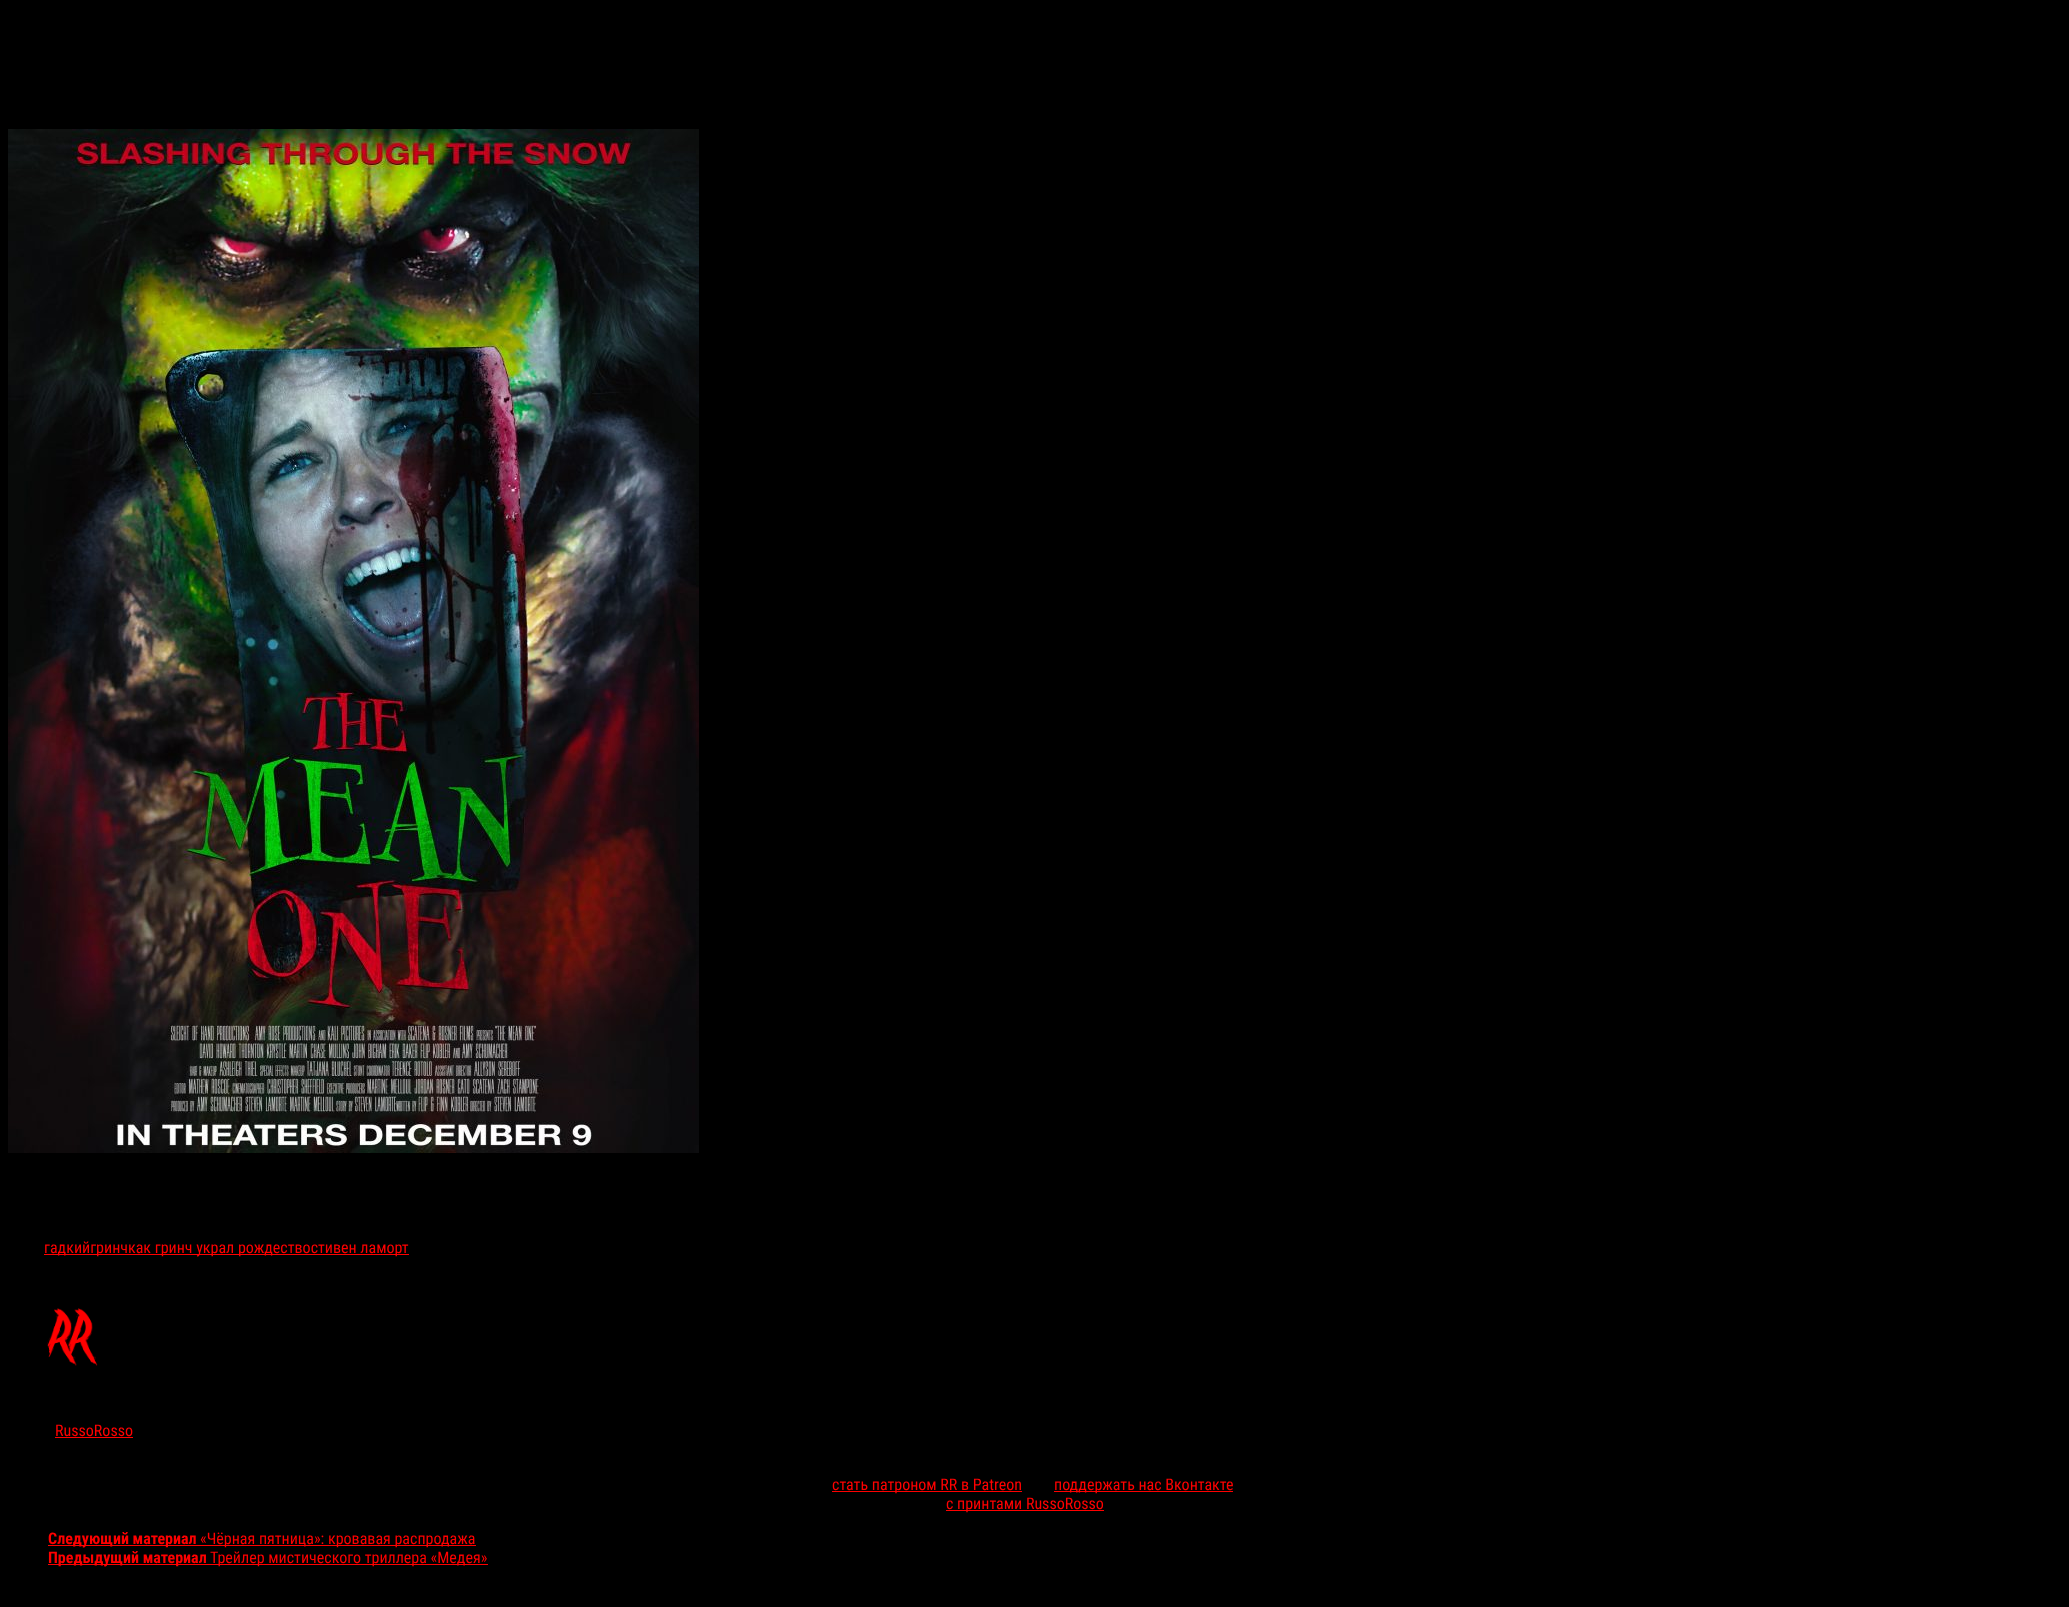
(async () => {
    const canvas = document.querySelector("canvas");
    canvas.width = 2069;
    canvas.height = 1607;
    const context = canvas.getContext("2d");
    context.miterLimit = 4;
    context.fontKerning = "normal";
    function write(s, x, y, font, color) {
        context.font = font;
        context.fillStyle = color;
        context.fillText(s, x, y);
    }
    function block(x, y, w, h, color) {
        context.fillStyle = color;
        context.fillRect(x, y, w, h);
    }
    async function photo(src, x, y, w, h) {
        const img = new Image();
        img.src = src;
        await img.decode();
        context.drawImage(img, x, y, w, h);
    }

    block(0, 0, 2069, 1607, "rgb(0, 0, 0)");
    await photo("media/1.png", 8, 129, 691, 1024);
    block(44, 1254, 365, 1, "rgb(255, 0, 0)");
    write("гадкийгринчкак гринч украл рождествостивен ламорт", 44, 1253, "16px Roboto Condensed", "rgb(255, 0, 0)");
    await photo("media/2.png", 46, 1308, 52, 58);
    write("RussoRosso", 55, 1436, "16px Roboto Condensed", "rgb(255, 0, 0)");
    block(55, 1437, 78, 1, "rgb(255, 0, 0)");
    block(832, 1491, 190, 1, "rgb(255, 0, 0)");
    write("стать патроном RR в Patreon", 832, 1490, "16px Roboto Condensed", "rgb(255, 0, 0)");
    block(1054, 1491, 179, 1, "rgb(255, 0, 0)");
    write("поддержать нас Вконтакте", 1054, 1490, "16px Roboto Condensed", "rgb(255, 0, 0)");
    block(946, 1510, 158, 1, "rgb(255, 0, 0)");
    write("с принтами RussoRosso", 946, 1509, "16px Roboto Condensed", "rgb(255, 0, 0)");
    block(48, 1545, 428, 1, "rgb(255, 0, 0)");
    write("Следующий материал", 48, 1544, "bold 16px Roboto Condensed", "rgb(255, 0, 0)");
    write("«Чёрная пятница»: кровавая распродажа", 200, 1544, "16px Roboto Condensed", "rgb(255, 0, 0)");
    block(48, 1564, 440, 1, "rgb(255, 0, 0)");
    write("Предыдущий материал", 48, 1563, "bold 16px Roboto Condensed", "rgb(255, 0, 0)");
    write("Трейлер мистического триллера «Медея»", 210, 1563, "16px Roboto Condensed", "rgb(255, 0, 0)");
})();
